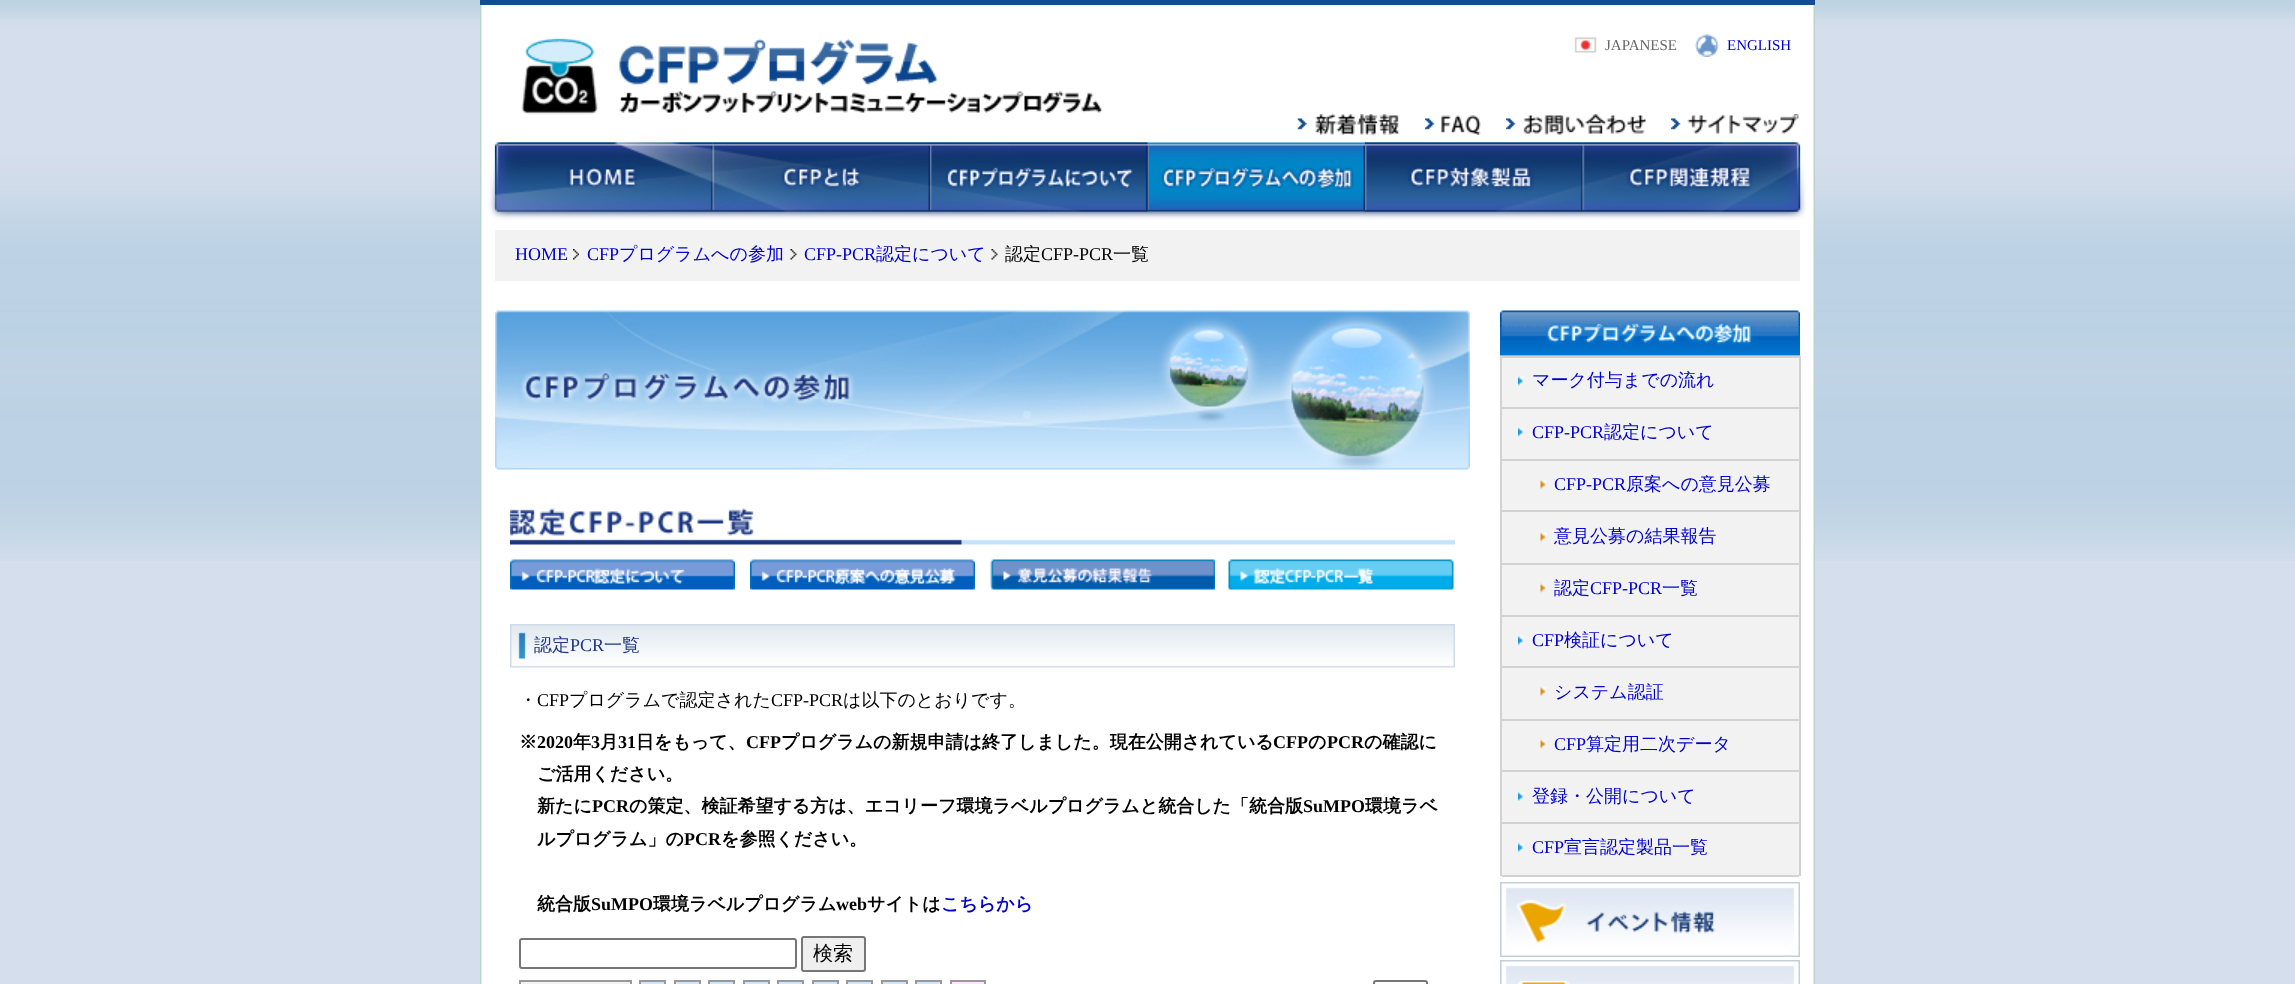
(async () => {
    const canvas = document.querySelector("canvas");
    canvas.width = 2295;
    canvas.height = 984;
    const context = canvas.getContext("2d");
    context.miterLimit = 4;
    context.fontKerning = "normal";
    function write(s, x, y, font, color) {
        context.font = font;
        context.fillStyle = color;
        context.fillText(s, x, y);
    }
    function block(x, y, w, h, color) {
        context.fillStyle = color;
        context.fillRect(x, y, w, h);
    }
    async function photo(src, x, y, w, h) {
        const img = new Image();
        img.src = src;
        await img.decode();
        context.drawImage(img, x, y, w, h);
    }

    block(0, 0, 2295, 984, "rgb(212, 222, 236)");
    await photo("media/1.png", 0, 0, 2295, 561);
    await photo("media/2.png", 480, 5, 1335, 979);
    block(480, 0, 1335, 5, "rgb(18, 76, 145)");
    await photo("media/3.png", 521, 38, 582, 77);
    await photo("media/4.png", 1574, 37, 23, 16);
    write("JAPANESE", 1605, 50, "15px Liberation Serif", "rgb(104, 104, 104)");
    await photo("media/5.png", 1695, 34, 24, 23);
    write("ENGLISH", 1727, 50, "15px Liberation Serif", "rgb(0, 0, 204)");
    await photo("media/6.png", 1297, 114, 103, 21);
    await photo("media/7.png", 1425, 115, 56, 20);
    await photo("media/8.png", 1506, 114, 140, 21);
    await photo("media/9.png", 1671, 114, 128, 20);
    await photo("media/10.png", 488, 142, 1318, 78);
    await photo("media/11.png", 495, 142, 218, 70);
    await photo("media/12.png", 712, 142, 218, 70);
    await photo("media/13.png", 930, 142, 218, 70);
    await photo("media/14.png", 1365, 142, 218, 70);
    await photo("media/15.png", 1582, 142, 218, 70);
    block(495, 230, 1305, 51, "rgb(242, 242, 242)");
    write("HOME", 515, 260, "18px Liberation Serif", "rgb(0, 0, 204)");
    await photo("media/16.png", 573, 249, 6, 11);
    write("CFP", 587, 260, "18px Liberation Serif", "rgb(0, 0, 204)");
    write("プログラムへの参加", 619, 260, "500 18px WenQuanYi Zen Hei", "rgb(0, 0, 204)");
    await photo("media/17.png", 790, 249, 7, 11);
    write("CFP-PCR", 804, 260, "18px Liberation Serif", "rgb(0, 0, 204)");
    write("認定について", 876, 260, "500 18px WenQuanYi Zen Hei", "rgb(0, 0, 204)");
    await photo("media/17.png", 991, 249, 7, 11);
    write("認定", 1005, 260, "500 18px WenQuanYi Zen Hei", "rgb(0, 0, 0)");
    write("CFP-PCR", 1041, 260, "18px Liberation Serif", "rgb(0, 0, 0)");
    write("一覧", 1113, 260, "500 18px WenQuanYi Zen Hei", "rgb(0, 0, 0)");
    await photo("media/18.png", 495, 310, 975, 160);
    await photo("media/19.png", 510, 508, 945, 37);
    await photo("media/20.png", 510, 559, 225, 31);
    await photo("media/21.png", 750, 559, 225, 31);
    await photo("media/22.png", 990, 559, 225, 31);
    await photo("media/23.png", 1228, 559, 226, 31);
    await photo("media/24.png", 510, 624, 945, 44);
    write("認定", 534, 651, "500 18px WenQuanYi Zen Hei", "rgb(31, 54, 130)");
    write("PCR", 570, 651, "18px Liberation Serif", "rgb(31, 54, 130)");
    write("一覧", 604, 651, "500 18px WenQuanYi Zen Hei", "rgb(31, 54, 130)");
    write("・", 519, 706, "500 18px WenQuanYi Zen Hei", "rgb(0, 0, 0)");
    write("CFP", 537, 706, "18px Liberation Serif", "rgb(0, 0, 0)");
    write("プログラムで認定された", 569, 706, "500 18px WenQuanYi Zen Hei", "rgb(0, 0, 0)");
    write("CFP-PCR", 771, 706, "18px Liberation Serif", "rgb(0, 0, 0)");
    write("は以下のとおりです。", 843, 706, "500 18px WenQuanYi Zen Hei", "rgb(0, 0, 0)");
    write("※", 519, 748, "bold 18px WenQuanYi Zen Hei", "rgb(0, 0, 0)");
    write("2020", 537, 748, "bold 18px Liberation Serif", "rgb(0, 0, 0)");
    write("年", 573, 748, "bold 18px WenQuanYi Zen Hei", "rgb(0, 0, 0)");
    write("3", 591, 748, "bold 18px Liberation Serif", "rgb(0, 0, 0)");
    write("月", 600, 748, "bold 18px WenQuanYi Zen Hei", "rgb(0, 0, 0)");
    write("31", 618, 748, "bold 18px Liberation Serif", "rgb(0, 0, 0)");
    write("日をもって、", 636, 748, "bold 18px WenQuanYi Zen Hei", "rgb(0, 0, 0)");
    write("CFP", 746, 748, "bold 18px Liberation Serif", "rgb(0, 0, 0)");
    write("プログラムの新規申請は終了しました。現在公開されている", 781, 748, "bold 18px WenQuanYi Zen Hei", "rgb(0, 0, 0)");
    write("CFP", 1273, 748, "bold 18px Liberation Serif", "rgb(0, 0, 0)");
    write("の", 1308, 748, "bold 18px WenQuanYi Zen Hei", "rgb(0, 0, 0)");
    write("PCR", 1327, 748, "bold 18px Liberation Serif", "rgb(0, 0, 0)");
    write("の確認に", 1364, 748, "bold 18px WenQuanYi Zen Hei", "rgb(0, 0, 0)");
    write("ご活用ください。", 537, 780, "bold 18px WenQuanYi Zen Hei", "rgb(0, 0, 0)");
    write("新たに", 537, 812, "bold 18px WenQuanYi Zen Hei", "rgb(0, 0, 0)");
    write("PCR", 592, 812, "bold 18px Liberation Serif", "rgb(0, 0, 0)");
    write("の策定、検証希望する方は、エコリーフ環境ラベルプログラムと統合した「統合版", 629, 812, "bold 18px WenQuanYi Zen Hei", "rgb(0, 0, 0)");
    write("SuMPO", 1303, 812, "bold 18px Liberation Serif", "rgb(0, 0, 0)");
    write("環境ラベ", 1365, 812, "bold 18px WenQuanYi Zen Hei", "rgb(0, 0, 0)");
    write("ルプログラム」の", 537, 845, "bold 18px WenQuanYi Zen Hei", "rgb(0, 0, 0)");
    write("PCR", 684, 845, "bold 18px Liberation Serif", "rgb(0, 0, 0)");
    write("を参照ください。", 721, 845, "bold 18px WenQuanYi Zen Hei", "rgb(0, 0, 0)");
    write("統合版", 537, 910, "bold 18px WenQuanYi Zen Hei", "rgb(0, 0, 0)");
    write("SuMPO", 591, 910, "bold 18px Liberation Serif", "rgb(0, 0, 0)");
    write("環境ラベルプログラム", 653, 910, "bold 18px WenQuanYi Zen Hei", "rgb(0, 0, 0)");
    write("web", 836, 910, "bold 18px Liberation Serif", "rgb(0, 0, 0)");
    write("サイトは", 867, 910, "bold 18px WenQuanYi Zen Hei", "rgb(0, 0, 0)");
    write("こちらから", 941, 910, "bold 18px WenQuanYi Zen Hei", "rgb(0, 0, 204)");
    context.beginPath();
    context.roundRect(520, 939, 276, 29, 2);
    context.strokeStyle = "rgb(118, 118, 118)";
    context.lineWidth = 2;
    context.stroke();
    context.fillStyle = "rgb(239, 239, 239)";
    context.beginPath();
    context.roundRect(802, 937, 63, 34, 2);
    context.fill();
    context.stroke();
    write("検索", 813, 960, "500 20px WenQuanYi Zen Hei", "rgb(0, 0, 0)");
    context.fillStyle = "rgb(242, 242, 242)";
    context.beginPath();
    context.rect(520, 981, 111, 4);
    context.fill();
    context.strokeStyle = "rgb(153, 153, 153)";
    context.stroke();
    context.fillStyle = "rgb(206, 231, 255)";
    context.beginPath();
    context.rect(640, 981, 25, 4);
    context.fill();
    context.stroke();
    context.beginPath();
    context.rect(675, 981, 25, 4);
    context.fill();
    context.stroke();
    context.beginPath();
    context.rect(709, 981, 25, 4);
    context.fill();
    context.stroke();
    context.beginPath();
    context.rect(744, 981, 25, 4);
    context.fill();
    context.stroke();
    context.beginPath();
    context.rect(778, 981, 25, 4);
    context.fill();
    context.stroke();
    context.beginPath();
    context.rect(813, 981, 25, 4);
    context.fill();
    context.stroke();
    context.beginPath();
    context.rect(847, 981, 25, 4);
    context.fill();
    context.stroke();
    context.beginPath();
    context.rect(882, 981, 25, 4);
    context.fill();
    context.stroke();
    context.beginPath();
    context.rect(916, 981, 25, 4);
    context.fill();
    context.stroke();
    context.fillStyle = "rgb(255, 230, 255)";
    context.beginPath();
    context.rect(951, 981, 34, 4);
    context.fill();
    context.stroke();
    context.beginPath();
    context.roundRect(1374, 981, 53, 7, 2);
    context.strokeStyle = "rgb(118, 118, 118)";
    context.stroke();
    await photo("media/25.png", 1500, 310, 300, 46);
    block(1502, 358, 297, 517, "rgb(242, 242, 242)");
    block(1500, 356, 300, 2, "rgb(210, 210, 210)");
    block(1799, 356, 2, 520, "rgb(210, 210, 210)");
    block(1500, 356, 2, 520, "rgb(210, 210, 210)");
    await photo("media/26.png", 1518, 376, 6, 10);
    block(1502, 407, 297, 2, "rgb(210, 210, 210)");
    write("マーク付与までの流れ", 1532, 386, "500 18px WenQuanYi Zen Hei", "rgb(0, 0, 204)");
    await photo("media/26.png", 1518, 427, 6, 10);
    block(1502, 459, 297, 2, "rgb(210, 210, 210)");
    write("CFP-PCR", 1532, 438, "18px Liberation Serif", "rgb(0, 0, 204)");
    write("認定について", 1604, 438, "500 18px WenQuanYi Zen Hei", "rgb(0, 0, 204)");
    await photo("media/27.png", 1540, 480, 7, 9);
    block(1502, 510, 297, 2, "rgb(210, 210, 210)");
    write("CFP-PCR", 1554, 490, "18px Liberation Serif", "rgb(0, 0, 204)");
    write("原案への意見公募", 1626, 490, "500 18px WenQuanYi Zen Hei", "rgb(0, 0, 204)");
    await photo("media/28.png", 1540, 532, 7, 10);
    block(1502, 563, 297, 2, "rgb(210, 210, 210)");
    write("意見公募の結果報告", 1554, 542, "500 18px WenQuanYi Zen Hei", "rgb(0, 0, 204)");
    await photo("media/28.png", 1540, 583, 7, 10);
    block(1502, 615, 297, 2, "rgb(210, 210, 210)");
    write("認定", 1554, 594, "500 18px WenQuanYi Zen Hei", "rgb(0, 0, 204)");
    write("CFP-PCR", 1590, 594, "18px Liberation Serif", "rgb(0, 0, 204)");
    write("一覧", 1662, 594, "500 18px WenQuanYi Zen Hei", "rgb(0, 0, 204)");
    await photo("media/29.png", 1518, 636, 6, 9);
    block(1502, 666, 297, 2, "rgb(210, 210, 210)");
    write("CFP", 1532, 646, "18px Liberation Serif", "rgb(0, 0, 204)");
    write("検証について", 1564, 646, "500 18px WenQuanYi Zen Hei", "rgb(0, 0, 204)");
    await photo("media/27.png", 1540, 687, 7, 9);
    block(1502, 719, 297, 2, "rgb(210, 210, 210)");
    write("システム認証", 1554, 698, "500 18px WenQuanYi Zen Hei", "rgb(0, 0, 204)");
    await photo("media/28.png", 1540, 739, 7, 10);
    block(1502, 770, 297, 2, "rgb(210, 210, 210)");
    write("CFP", 1554, 750, "18px Liberation Serif", "rgb(0, 0, 204)");
    write("算定用二次データ", 1586, 750, "500 18px WenQuanYi Zen Hei", "rgb(0, 0, 204)");
    await photo("media/29.png", 1518, 792, 6, 9);
    block(1502, 822, 297, 2, "rgb(210, 210, 210)");
    write("登録・公開について", 1532, 802, "500 18px WenQuanYi Zen Hei", "rgb(0, 0, 204)");
    await photo("media/29.png", 1518, 843, 6, 9);
    block(1502, 875, 297, 2, "rgb(210, 210, 210)");
    write("CFP", 1532, 853, "18px Liberation Serif", "rgb(0, 0, 204)");
    write("宣言認定製品一覧", 1564, 853, "500 18px WenQuanYi Zen Hei", "rgb(0, 0, 204)");
    await photo("media/30.png", 1500, 882, 300, 75);
    await photo("media/31.png", 1500, 960, 300, 24);
})();
